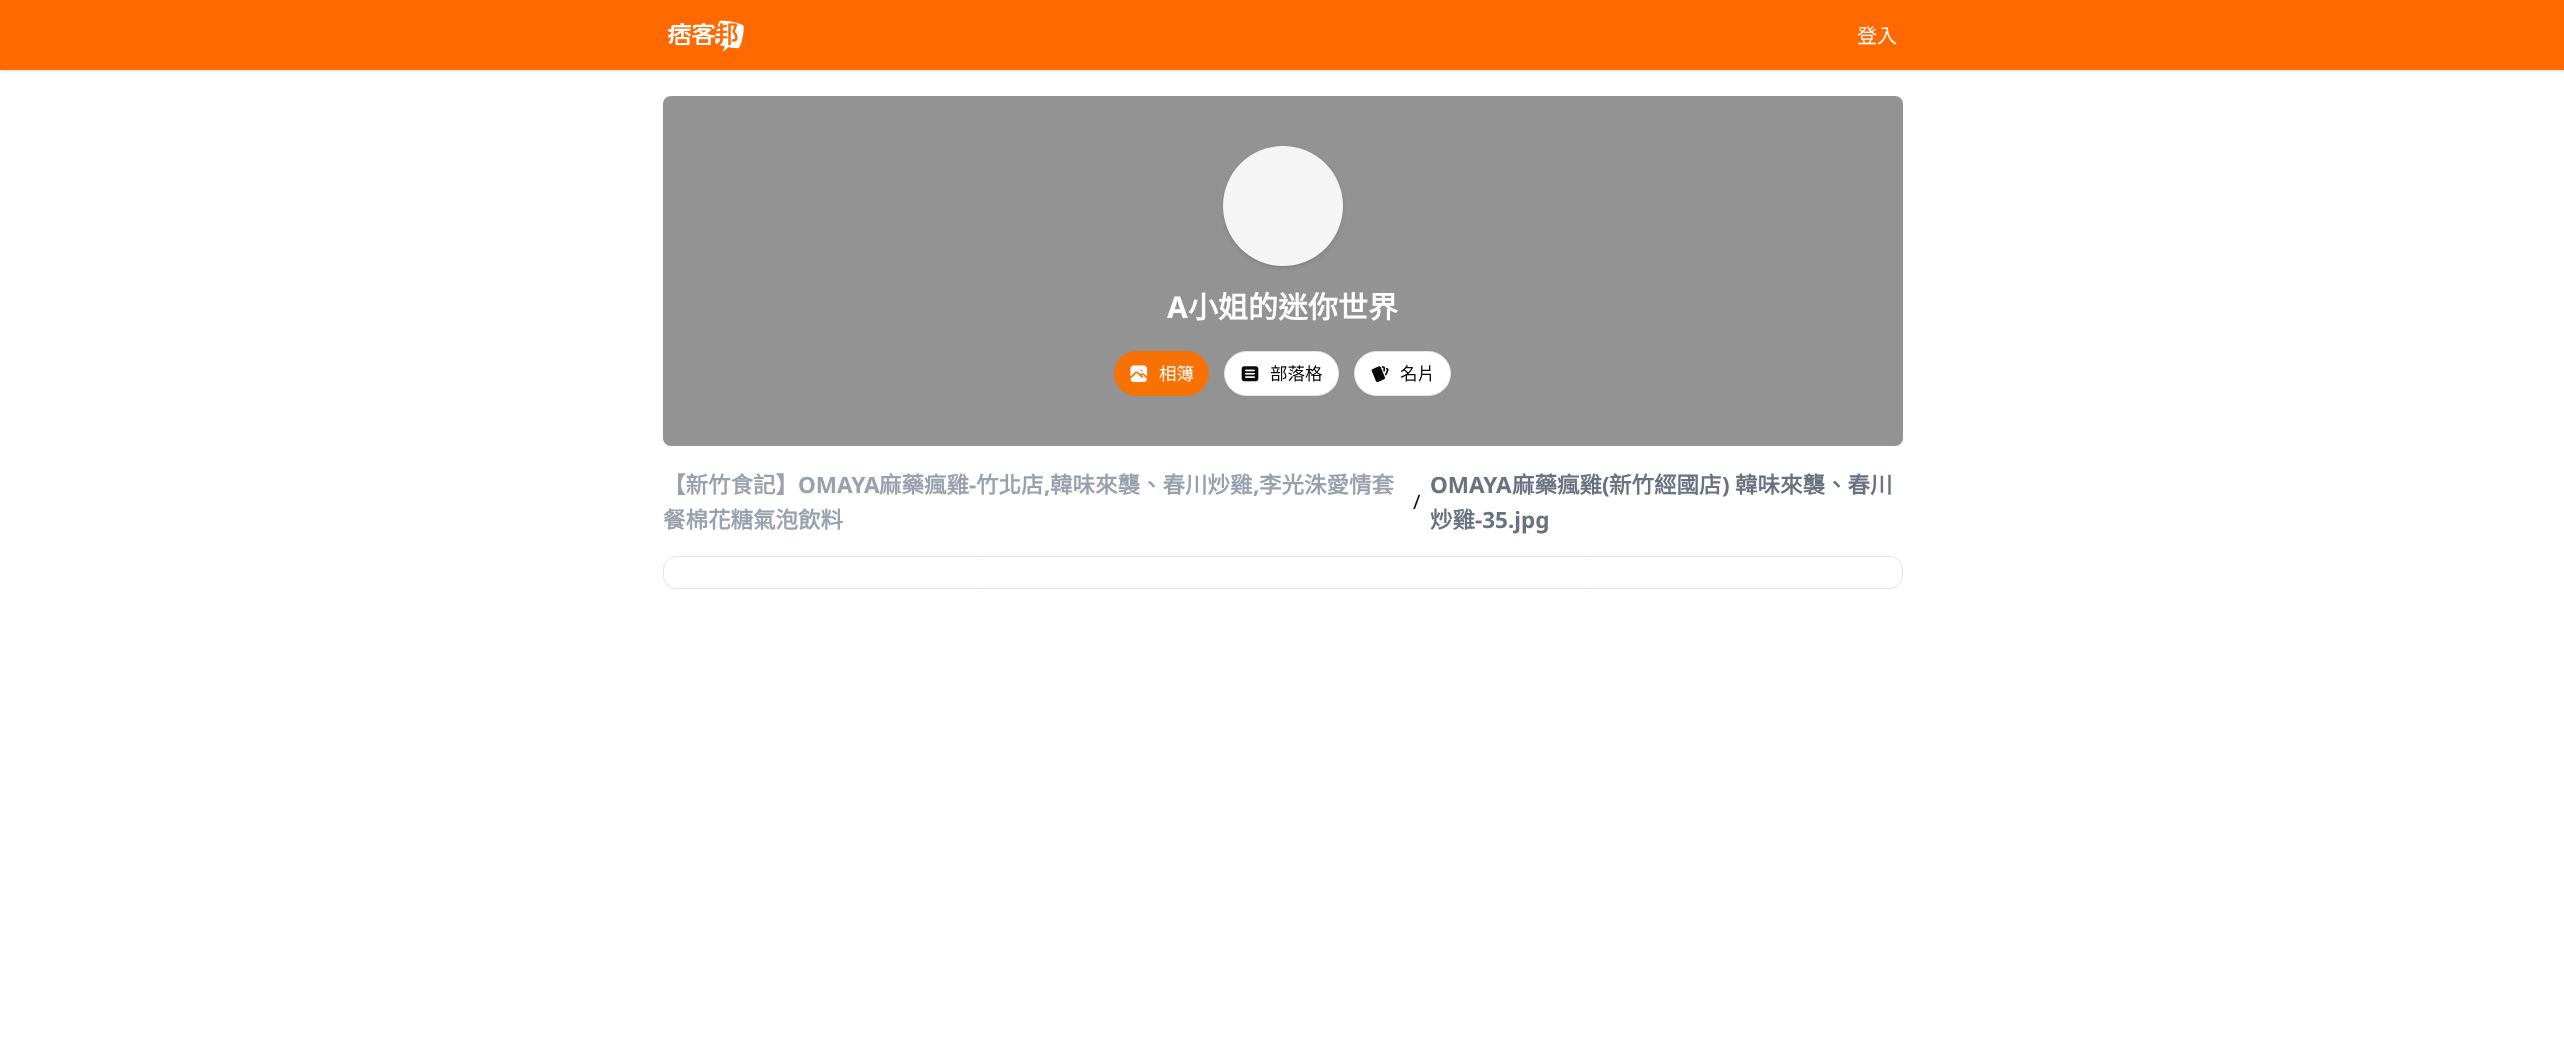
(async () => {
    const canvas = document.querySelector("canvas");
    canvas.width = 2564;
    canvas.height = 1046;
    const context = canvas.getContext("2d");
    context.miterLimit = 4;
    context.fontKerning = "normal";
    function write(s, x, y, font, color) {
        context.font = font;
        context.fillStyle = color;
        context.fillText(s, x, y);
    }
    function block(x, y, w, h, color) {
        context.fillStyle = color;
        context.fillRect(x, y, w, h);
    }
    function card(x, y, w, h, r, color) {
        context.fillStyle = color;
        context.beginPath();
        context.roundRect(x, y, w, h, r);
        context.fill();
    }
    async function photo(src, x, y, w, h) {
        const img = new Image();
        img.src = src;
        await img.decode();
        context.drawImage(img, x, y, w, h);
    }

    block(0, 0, 2564, 1046, "rgb(255, 255, 255)");
    context.fillStyle = "rgba(0, 0, 0, 0.1)";
    context.filter = "blur(1px)";
    context.beginPath();
    context.rect(1, 3, 2563, 67);
    context.fill();
    context.filter = "none";
    context.filter = "blur(2px)";
    context.beginPath();
    context.rect(0, 1, 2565, 70);
    context.fill();
    context.filter = "none";
    block(0, 0, 2564, 70, "rgb(255, 105, 0)");
    await photo("media/1.png", 668, 20, 76, 31);
    write("登入", 1857, 43, "20px Noto Sans CJK TC", "rgb(255, 255, 255)");
    card(663, 96, 1240, 350, 8, "rgb(245, 245, 245)");
    card(663, 96, 1240, 350, 8, "rgba(0, 0, 0, 0.4)");
    context.fillStyle = "rgba(0, 0, 0, 0.1)";
    context.filter = "blur(1px)";
    context.beginPath();
    context.roundRect(1224, 149, 117, 117, 58.5);
    context.fill();
    context.filter = "none";
    context.filter = "blur(2px)";
    context.beginPath();
    context.roundRect(1223, 148, 120, 120, 60);
    context.fill();
    context.filter = "none";
    context.fillStyle = "rgb(245, 245, 245)";
    context.beginPath();
    context.arc(1283, 206, 60, 0, Math.PI * 2);
    context.fill();
    write("A", 1167, 318, "bold 30px Noto Sans", "rgb(255, 255, 255)");
    write("小姐的迷你世界", 1188, 318, "bold 30px Noto Sans CJK TC", "rgb(255, 255, 255)");
    card(1114, 351, 95, 45, 22.5, "rgb(248, 113, 3)");
    await photo("media/2.png", 1130, 365, 18, 18);
    write("相簿", 1159, 380, "17.5px Noto Sans CJK TC", "rgb(255, 255, 255)");
    context.beginPath();
    context.roundRect(1224.5, 351.5, 114, 44, 22);
    context.fill();
    context.strokeStyle = "rgb(229, 229, 229)";
    context.stroke();
    await photo("media/3.png", 1241, 366, 18, 16);
    write("部落格", 1270, 380, "17.5px Noto Sans CJK TC", "rgb(10, 10, 10)");
    context.fillStyle = "rgb(255, 255, 255)";
    context.beginPath();
    context.roundRect(1354.5, 351.5, 96, 44, 22);
    context.fill();
    context.stroke();
    await photo("media/4.png", 1371, 366, 18, 17);
    write("名片", 1400, 380, "17.5px Noto Sans CJK TC", "rgb(10, 10, 10)");
    write("【新竹食記】", 663, 493, "bold 22.5px Noto Sans CJK TC", "rgb(153, 161, 175)");
    write("OMAYA", 798, 493, "bold 22.5px Noto Sans", "rgb(153, 161, 175)");
    write("麻藥瘋雞", 879, 493, "bold 22.5px Noto Sans CJK TC", "rgb(153, 161, 175)");
    write("-", 969, 493, "bold 22.5px Noto Sans", "rgb(153, 161, 175)");
    write("竹北店", 976, 493, "bold 22.5px Noto Sans CJK TC", "rgb(153, 161, 175)");
    write("韓味來襲、春川炒雞", 1050, 493, "bold 22.5px Noto Sans CJK TC", "rgb(153, 161, 175)");
    write("李光洙愛情套", 1259, 493, "bold 22.5px Noto Sans CJK TC", "rgb(153, 161, 175)");
    write(",", 1044, 493, "bold 22.5px Noto Sans", "rgb(153, 161, 175)");
    write(",", 1253, 493, "bold 22.5px Noto Sans", "rgb(153, 161, 175)");
    write("餐棉花糖氣泡飲料", 663, 528, "bold 22.5px Noto Sans CJK TC", "rgb(153, 161, 175)");
    write("/", 1413, 509, "20px Noto Sans", "rgb(10, 10, 10)");
    write("OMAYA", 1430, 493, "bold 22.5px Noto Sans", "rgb(106, 114, 130)");
    write("麻藥瘋雞", 1512, 493, "bold 22.5px Noto Sans CJK TC", "rgb(106, 114, 130)");
    write("(", 1602, 493, "bold 22.5px Noto Sans", "rgb(106, 114, 130)");
    write("新竹經國店", 1609, 493, "bold 22.5px Noto Sans CJK TC", "rgb(106, 114, 130)");
    write(")", 1722, 493, "bold 22.5px Noto Sans", "rgb(106, 114, 130)");
    write("韓味來襲、春川", 1735, 493, "bold 22.5px Noto Sans CJK TC", "rgb(106, 114, 130)");
    write("炒雞", 1430, 528, "bold 22.5px Noto Sans CJK TC", "rgb(106, 114, 130)");
    write("-35.jpg", 1475, 528, "bold 22.5px Noto Sans", "rgb(106, 114, 130)");
    context.beginPath();
    context.roundRect(663.5, 556.5, 1239, 32, 12.5);
    context.stroke();
})();
